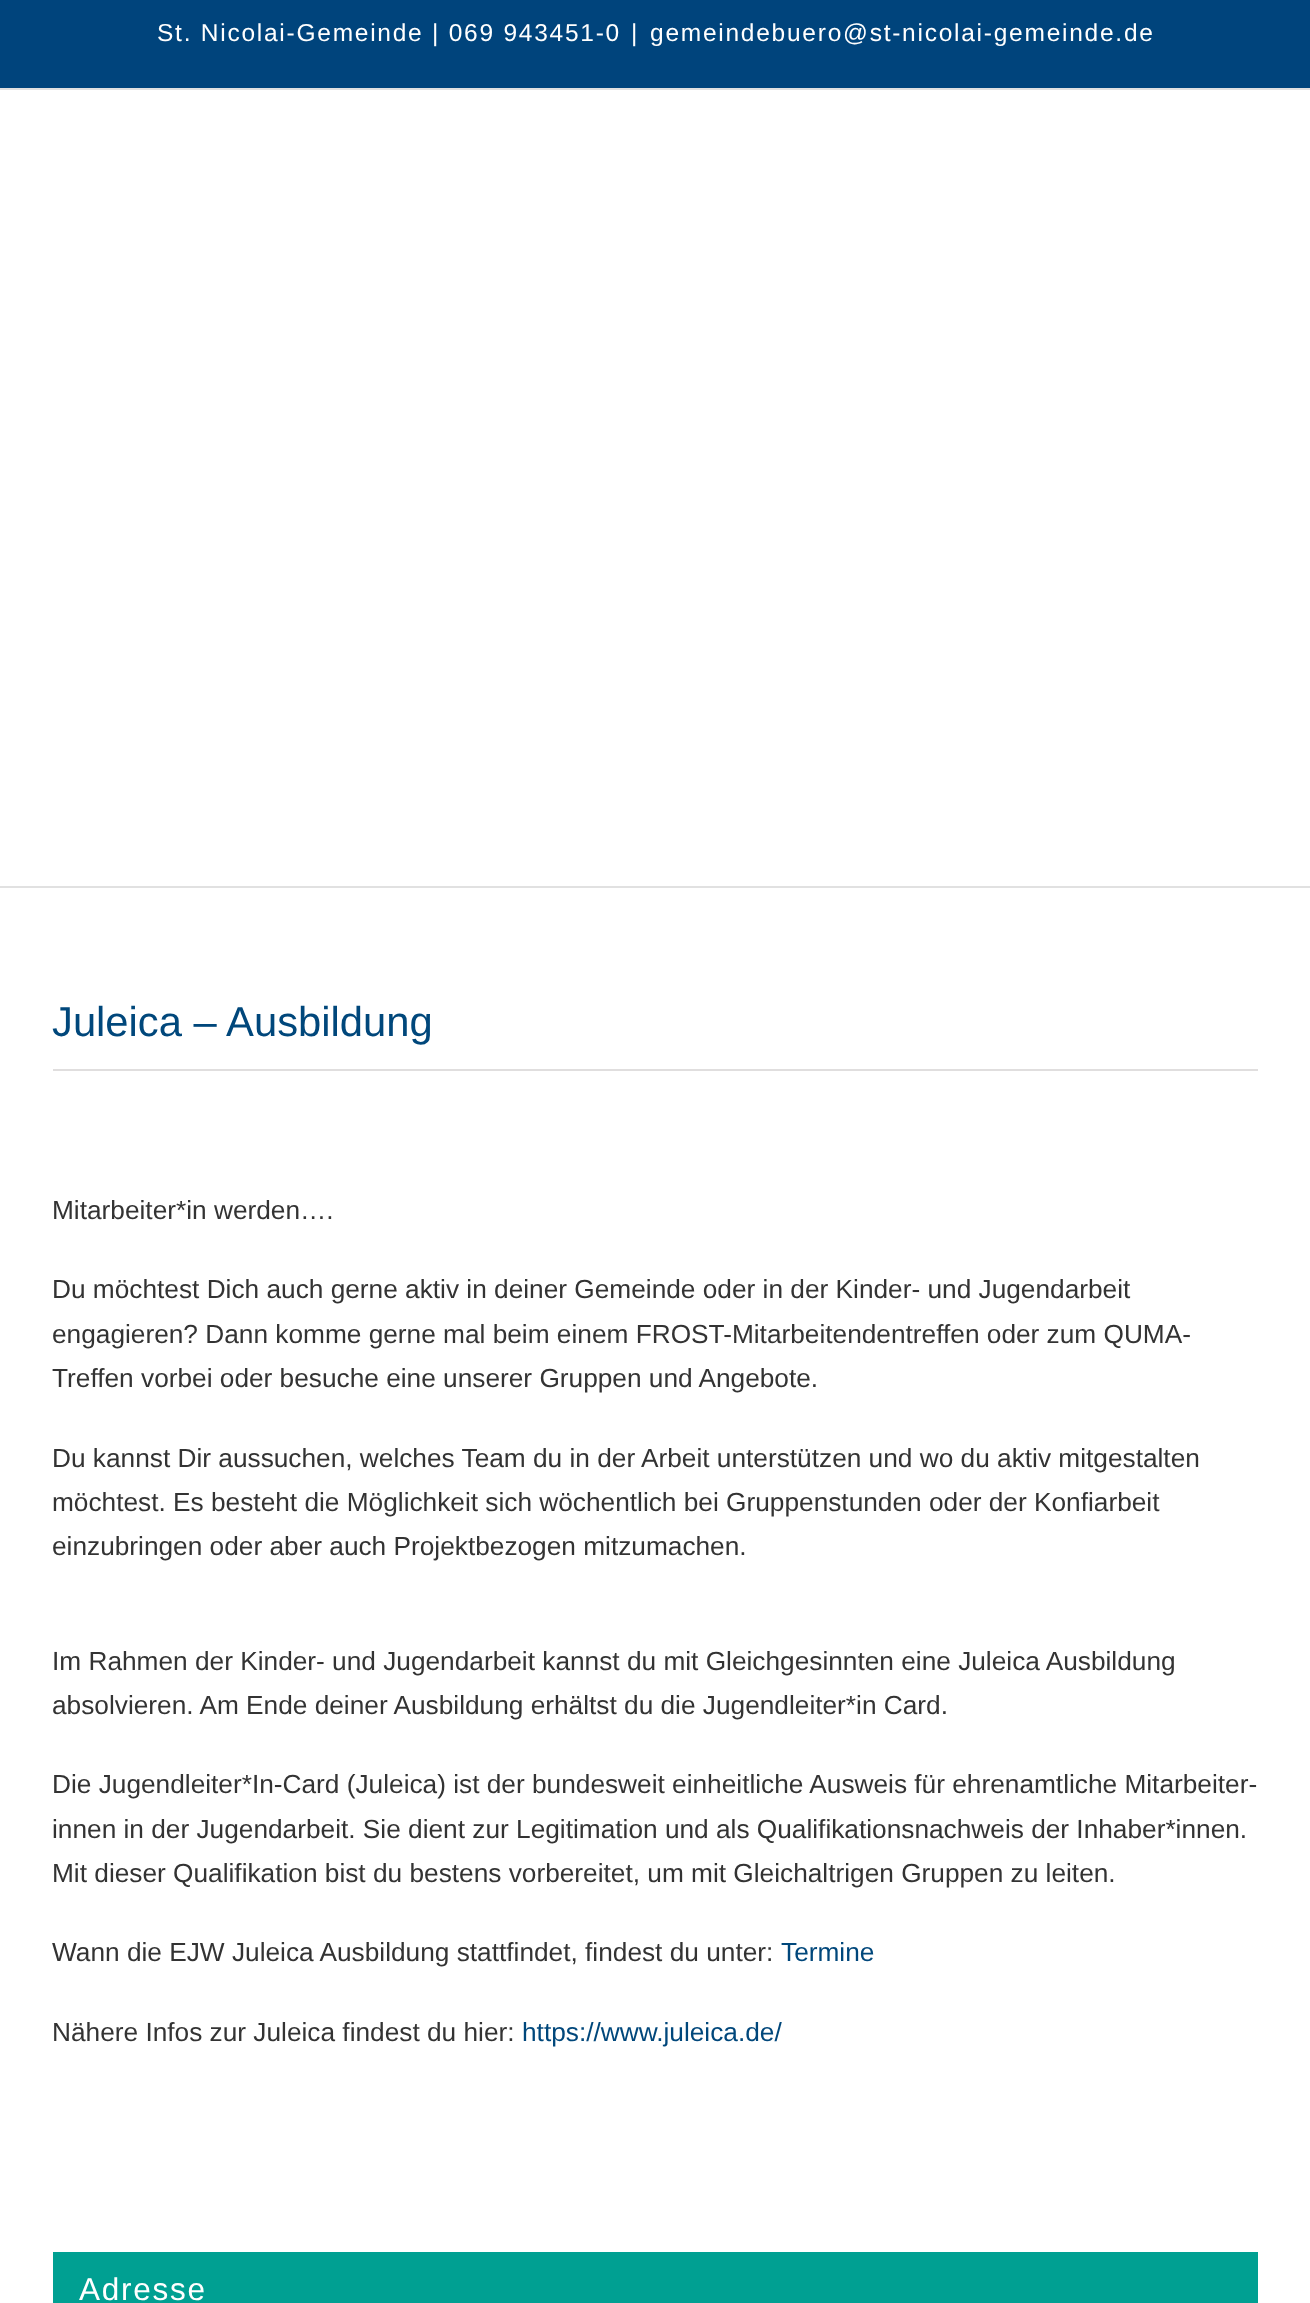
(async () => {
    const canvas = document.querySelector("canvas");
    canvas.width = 1310;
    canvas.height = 2303;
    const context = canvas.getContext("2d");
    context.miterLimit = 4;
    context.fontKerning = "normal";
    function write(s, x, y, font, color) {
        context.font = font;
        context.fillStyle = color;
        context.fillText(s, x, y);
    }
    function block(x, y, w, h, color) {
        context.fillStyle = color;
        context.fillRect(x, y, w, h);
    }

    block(0, 0, 1310, 2303, "rgb(255, 255, 255)");
    block(0, 0, 1310, 88, "rgb(0, 68, 124)");
    block(0, 88, 1310, 2, "rgb(225, 225, 225)");
    context.letterSpacing = "1.75px";
    write("St. Nicolai-Gemeinde | 069 943451-0", 157, 41, "24.5px Liberation Sans", "rgb(255, 255, 255)");
    write("|", 631, 41, "24.5px Liberation Sans", "rgb(255, 255, 255)");
    write("gemeindebuero@st-nicolai-gemeinde.de", 650, 41, "24.5px Liberation Sans", "rgb(255, 255, 255)");
    block(0, 886, 1310, 2, "rgb(225, 225, 225)");
    block(53, 1069, 1205, 2, "rgb(224, 222, 222)");
    context.letterSpacing = "0px";
    write("Juleica – Ausbildung", 52, 1036, "41.75px Liberation Sans", "rgb(0, 71, 123)");
    write("Mitarbeiter*in werden….", 52, 1219, "26.25px Liberation Sans", "rgb(51, 51, 51)");
    write("Du möchtest Dich auch gerne aktiv in deiner Gemeinde oder in der Kinder- und Jugendarbeit", 52, 1298, "26.25px Liberation Sans", "rgb(51, 51, 51)");
    write("engagieren? Dann komme gerne mal beim einem FROST-Mitarbeitendentreffen oder zum QUMA-", 52, 1343, "26.25px Liberation Sans", "rgb(51, 51, 51)");
    write("Treffen vorbei oder besuche eine unserer Gruppen und Angebote.", 52, 1387, "26.25px Liberation Sans", "rgb(51, 51, 51)");
    write("Du kannst Dir aussuchen, welches Team du in der Arbeit unterstützen und wo du aktiv mitgestalten", 52, 1467, "26.25px Liberation Sans", "rgb(51, 51, 51)");
    write("möchtest. Es besteht die Möglichkeit sich wöchentlich bei Gruppenstunden oder der Konfiarbeit", 52, 1511, "26.25px Liberation Sans", "rgb(51, 51, 51)");
    write("einzubringen oder aber auch Projektbezogen mitzumachen.", 52, 1555, "26.25px Liberation Sans", "rgb(51, 51, 51)");
    write("Im Rahmen der Kinder- und Jugendarbeit kannst du mit Gleichgesinnten eine Juleica Ausbildung", 52, 1670, "26.25px Liberation Sans", "rgb(51, 51, 51)");
    write("absolvieren. Am Ende deiner Ausbildung erhältst du die Jugendleiter*in Card.", 52, 1714, "26.25px Liberation Sans", "rgb(51, 51, 51)");
    write("Die Jugendleiter*In-Card (Juleica) ist der bundesweit einheitliche Ausweis für ehrenamtliche Mitarbeiter-", 52, 1793, "26.25px Liberation Sans", "rgb(51, 51, 51)");
    write("innen in der Jugendarbeit. Sie dient zur Legitimation und als Qualifikationsnachweis der Inhaber*innen.", 52, 1838, "26.25px Liberation Sans", "rgb(51, 51, 51)");
    write("Mit dieser Qualifikation bist du bestens vorbereitet, um mit Gleichaltrigen Gruppen zu leiten.", 52, 1882, "26.25px Liberation Sans", "rgb(51, 51, 51)");
    write("Wann die EJW Juleica Ausbildung stattfindet, findest du unter:", 52, 1961, "26.25px Liberation Sans", "rgb(51, 51, 51)");
    write("Termine", 781, 1961, "26.25px Liberation Sans", "rgb(0, 71, 123)");
    write("Nähere Infos zur Juleica findest du hier:", 52, 2041, "26.25px Liberation Sans", "rgb(51, 51, 51)");
    write("https://www.juleica.de/", 522, 2041, "26.25px Liberation Sans", "rgb(0, 71, 123)");
    block(53, 2252, 1205, 51, "rgb(0, 160, 146)");
    context.letterSpacing = "1.75px";
    write("Adresse", 79, 2300, "31.5px Liberation Sans", "rgb(255, 255, 255)");
})();
